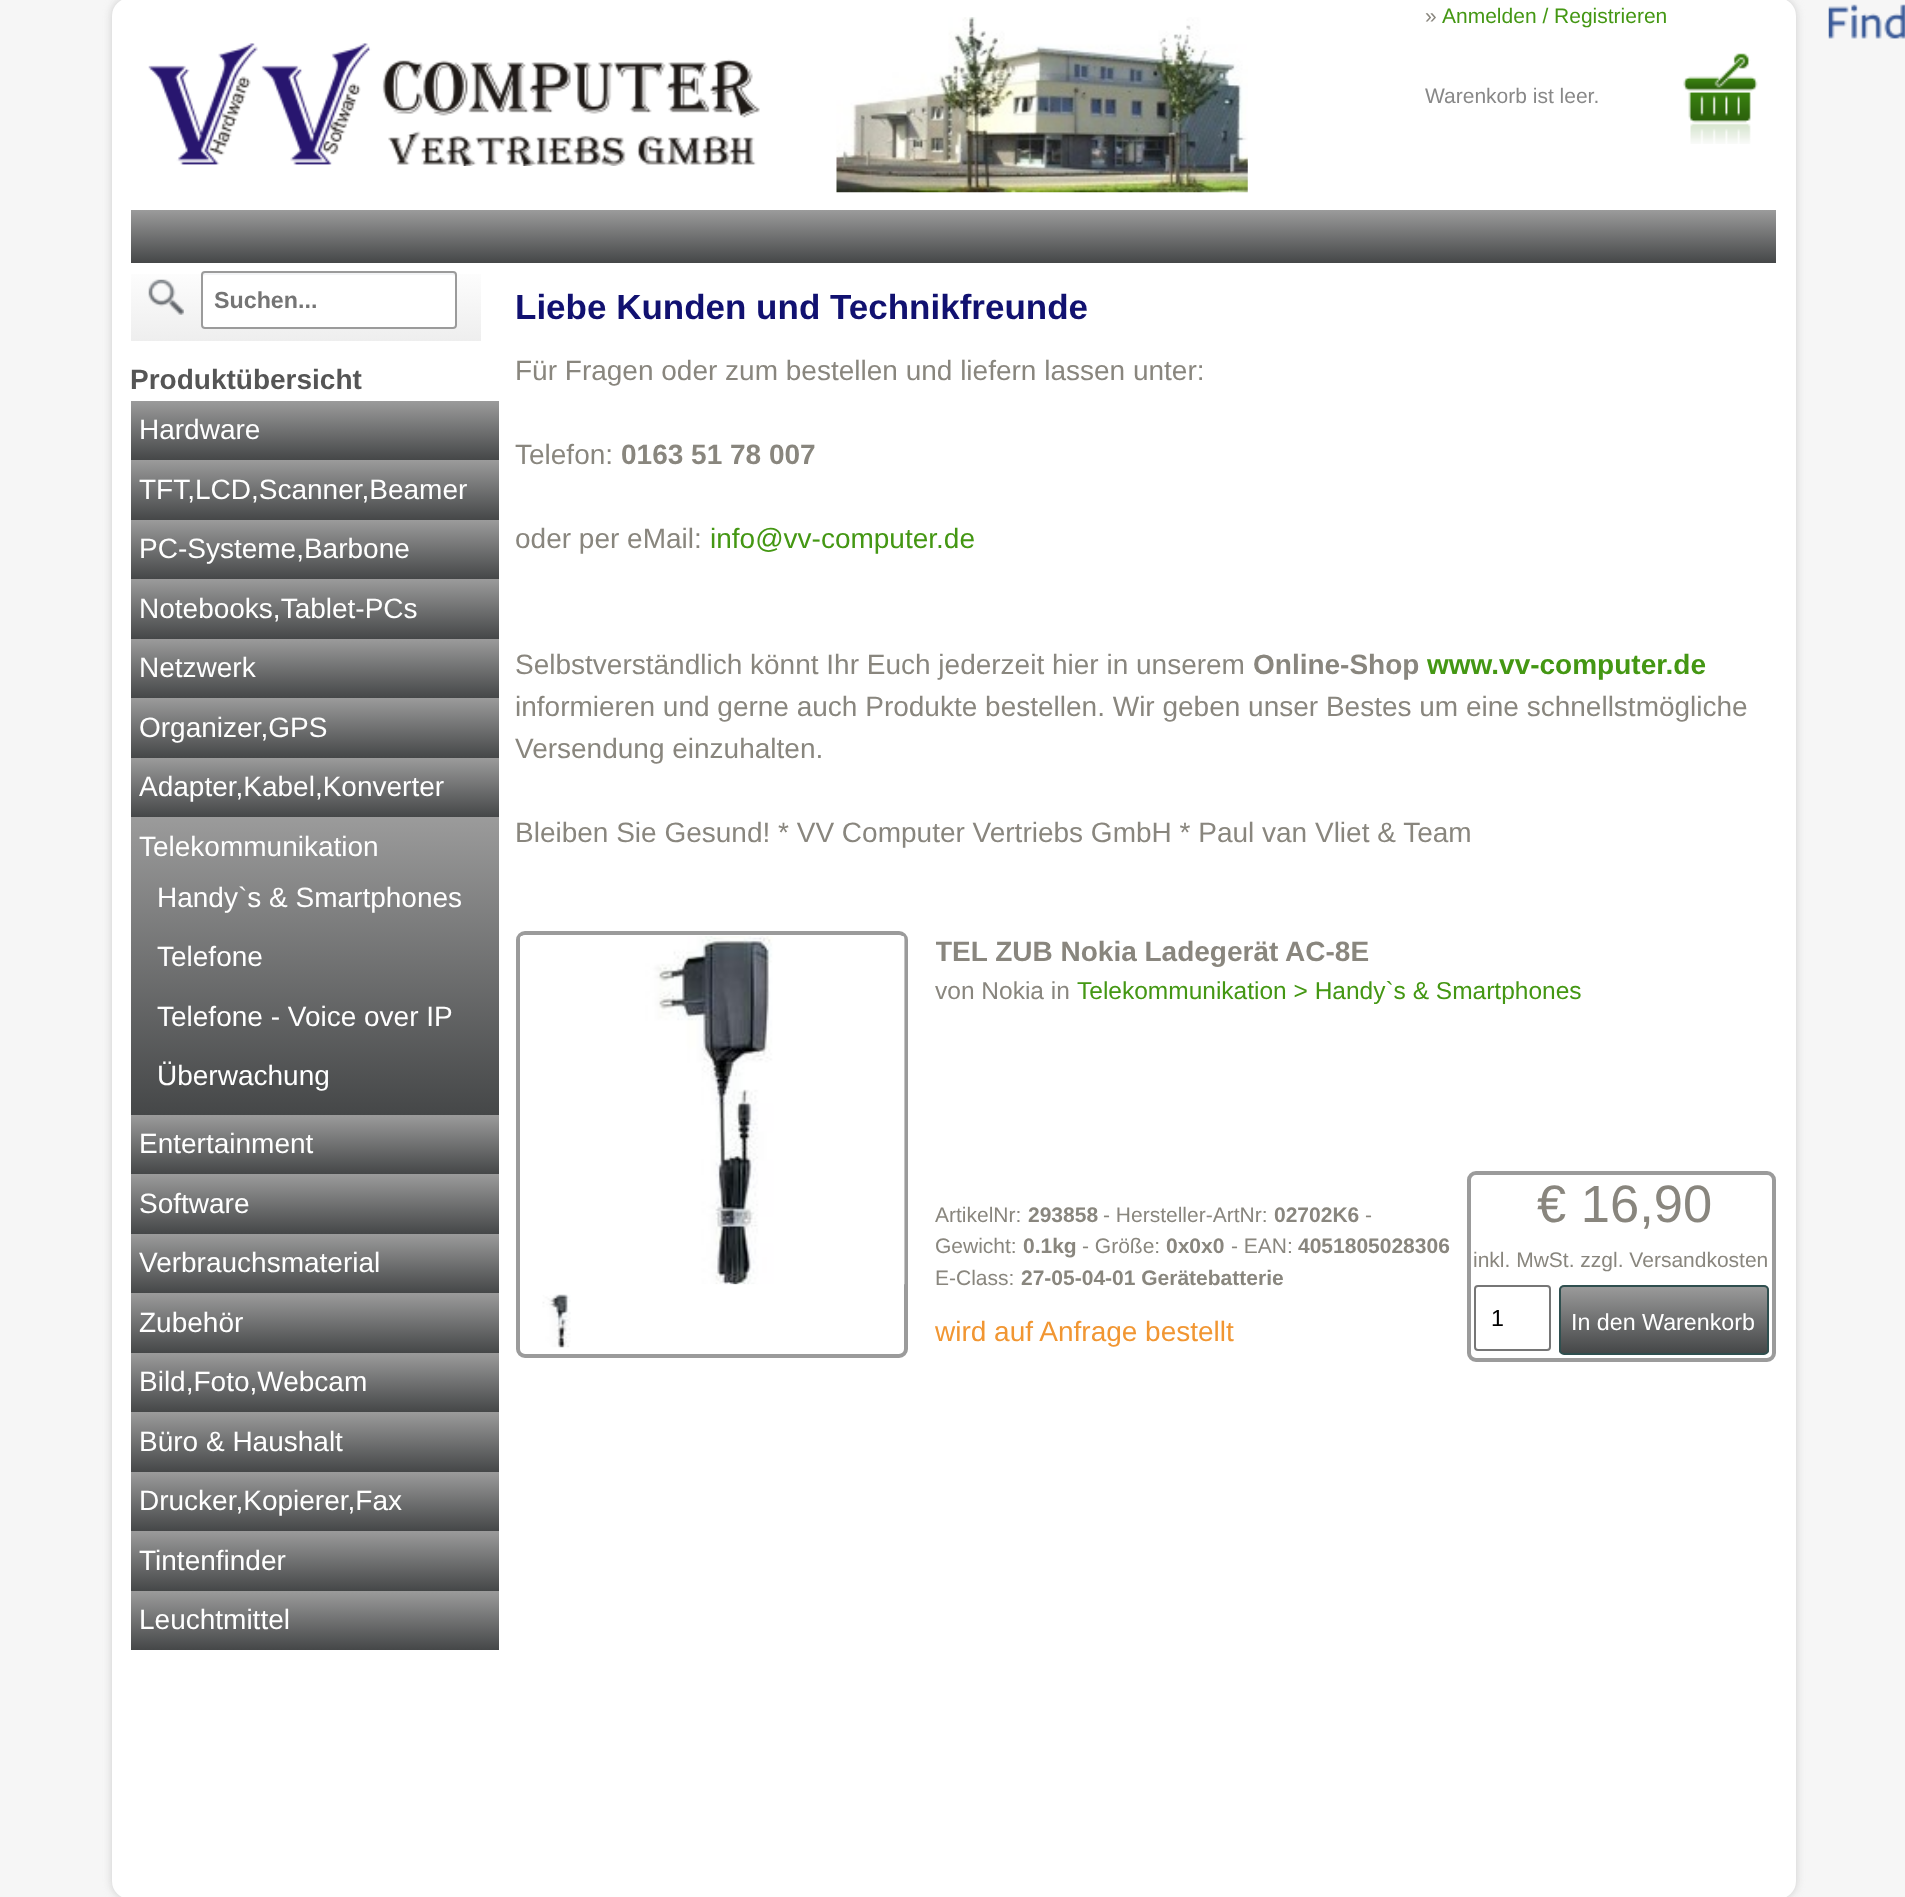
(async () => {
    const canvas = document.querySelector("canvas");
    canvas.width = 1905;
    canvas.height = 1897;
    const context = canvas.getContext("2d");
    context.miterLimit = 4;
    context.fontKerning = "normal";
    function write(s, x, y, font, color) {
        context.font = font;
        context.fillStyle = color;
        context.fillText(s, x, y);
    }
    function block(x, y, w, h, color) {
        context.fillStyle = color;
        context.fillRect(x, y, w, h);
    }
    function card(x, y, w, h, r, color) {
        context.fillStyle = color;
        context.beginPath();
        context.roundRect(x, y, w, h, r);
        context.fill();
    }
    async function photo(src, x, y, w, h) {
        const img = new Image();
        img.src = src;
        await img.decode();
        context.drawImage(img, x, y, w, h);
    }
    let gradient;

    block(0, 0, 1905, 1897, "rgb(246, 246, 246)");
    context.fillStyle = "rgb(204, 204, 204)";
    context.filter = "blur(4.5px)";
    context.beginPath();
    context.roundRect(112, -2, 1684, 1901, 18);
    context.fill();
    context.filter = "none";
    context.fillStyle = "rgb(255, 255, 255)";
    context.beginPath();
    context.roundRect(113, -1, 1682, 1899, 17);
    context.fill();
    context.strokeStyle = "rgb(255, 255, 255)";
    context.lineWidth = 2;
    context.stroke();
    await photo("media/1.png", 148, 43, 612, 123);
    await photo("media/2.png", 836, 17, 412, 176);
    write("»", 1425, 23, "21px Liberation Sans", "rgb(137, 134, 126)");
    write("Anmelden / Registrieren", 1442, 23, "21px Liberation Sans", "rgb(68, 151, 19)");
    await photo("media/3.png", 1683, 53, 75, 91);
    write("Warenkorb ist leer.", 1425, 103, "21px Liberation Sans", "rgb(136, 136, 136)");
    gradient = context.createLinearGradient(954, 210, 954, 263);
    gradient.addColorStop(0, "rgb(155, 155, 155)");
    gradient.addColorStop(1, "rgb(69, 71, 72)");
    context.fillStyle = gradient;
    context.fillRect(131, 210, 1645, 53);
    gradient = context.createLinearGradient(306, 263, 306, 341);
    gradient.addColorStop(0, "rgb(255, 255, 255)");
    gradient.addColorStop(1, "rgb(238, 238, 238)");
    context.fillStyle = gradient;
    context.fillRect(131, 274, 350, 67);
    await photo("media/4.png", 148, 279, 36, 36);
    card(201, 271, 256, 58, 4, "rgb(255, 255, 255)");
    context.fillStyle = "rgb(243, 244, 246)";
    context.beginPath();
    context.moveTo(205, 275);
    context.lineTo(453, 275);
    context.lineTo(455, 276);
    context.bezierCurveTo(455, 275, 455, 273, 453, 273);
    context.lineTo(205, 273);
    context.bezierCurveTo(203, 273, 203, 275, 203, 276);
    context.closePath();
    context.fill();
    context.beginPath();
    context.roundRect(202, 272, 254, 56, 3);
    context.strokeStyle = "rgb(155, 155, 155)";
    context.stroke();
    write("Suchen...", 214, 308, "bold 23.25px Liberation Sans", "rgb(117, 117, 117)");
    write("Produktübersicht", 130, 389, "bold 28px Liberation Sans", "rgb(85, 85, 85)");
    gradient = context.createLinearGradient(315, 401, 315, 460);
    gradient.addColorStop(0, "rgb(155, 155, 155)");
    gradient.addColorStop(1, "rgb(69, 71, 72)");
    context.fillStyle = gradient;
    context.fillRect(131, 401, 368, 59);
    write("Hardware", 139, 439, "28px Liberation Sans", "rgb(255, 255, 255)");
    gradient = context.createLinearGradient(315, 460, 315, 520);
    gradient.addColorStop(0, "rgb(155, 155, 155)");
    gradient.addColorStop(1, "rgb(69, 71, 72)");
    context.fillStyle = gradient;
    context.fillRect(131, 460, 368, 60);
    write("TFT,LCD,Scanner,Beamer", 139, 499, "28px Liberation Sans", "rgb(255, 255, 255)");
    gradient = context.createLinearGradient(315, 520, 315, 579);
    gradient.addColorStop(0, "rgb(155, 155, 155)");
    gradient.addColorStop(1, "rgb(69, 71, 72)");
    context.fillStyle = gradient;
    context.fillRect(131, 520, 368, 59);
    write("PC-Systeme,Barbone", 139, 558, "28px Liberation Sans", "rgb(255, 255, 255)");
    gradient = context.createLinearGradient(315, 579, 315, 639);
    gradient.addColorStop(0, "rgb(155, 155, 155)");
    gradient.addColorStop(1, "rgb(69, 71, 72)");
    context.fillStyle = gradient;
    context.fillRect(131, 579, 368, 60);
    write("Notebooks,Tablet-PCs", 139, 618, "28px Liberation Sans", "rgb(255, 255, 255)");
    gradient = context.createLinearGradient(315, 639, 315, 698);
    gradient.addColorStop(0, "rgb(155, 155, 155)");
    gradient.addColorStop(1, "rgb(69, 71, 72)");
    context.fillStyle = gradient;
    context.fillRect(131, 639, 368, 59);
    write("Netzwerk", 139, 677, "28px Liberation Sans", "rgb(255, 255, 255)");
    gradient = context.createLinearGradient(315, 698, 315, 758);
    gradient.addColorStop(0, "rgb(155, 155, 155)");
    gradient.addColorStop(1, "rgb(69, 71, 72)");
    context.fillStyle = gradient;
    context.fillRect(131, 698, 368, 60);
    write("Organizer,GPS", 139, 737, "28px Liberation Sans", "rgb(255, 255, 255)");
    gradient = context.createLinearGradient(315, 758, 315, 817);
    gradient.addColorStop(0, "rgb(155, 155, 155)");
    gradient.addColorStop(1, "rgb(69, 71, 72)");
    context.fillStyle = gradient;
    context.fillRect(131, 758, 368, 59);
    write("Adapter,Kabel,Konverter", 139, 796, "28px Liberation Sans", "rgb(255, 255, 255)");
    gradient = context.createLinearGradient(315, 817, 315, 1115);
    gradient.addColorStop(0, "rgb(155, 155, 155)");
    gradient.addColorStop(1, "rgb(69, 71, 72)");
    context.fillStyle = gradient;
    context.fillRect(131, 817, 368, 298);
    write("Telekommunikation", 139, 856, "28px Liberation Sans", "rgb(255, 255, 255)");
    write("Handy`s & Smartphones", 157, 907, "28px Liberation Sans", "rgb(255, 255, 255)");
    write("Telefone", 157, 966, "28px Liberation Sans", "rgb(255, 255, 255)");
    write("Telefone - Voice over IP", 157, 1026, "28px Liberation Sans", "rgb(255, 255, 255)");
    write("Überwachung", 157, 1085, "28px Liberation Sans", "rgb(255, 255, 255)");
    gradient = context.createLinearGradient(315, 1115, 315, 1174);
    gradient.addColorStop(0, "rgb(155, 155, 155)");
    gradient.addColorStop(1, "rgb(69, 71, 72)");
    context.fillStyle = gradient;
    context.fillRect(131, 1115, 368, 59);
    write("Entertainment", 139, 1153, "28px Liberation Sans", "rgb(255, 255, 255)");
    gradient = context.createLinearGradient(315, 1174, 315, 1234);
    gradient.addColorStop(0, "rgb(155, 155, 155)");
    gradient.addColorStop(1, "rgb(69, 71, 72)");
    context.fillStyle = gradient;
    context.fillRect(131, 1174, 368, 60);
    write("Software", 139, 1213, "28px Liberation Sans", "rgb(255, 255, 255)");
    gradient = context.createLinearGradient(315, 1234, 315, 1293);
    gradient.addColorStop(0, "rgb(155, 155, 155)");
    gradient.addColorStop(1, "rgb(69, 71, 72)");
    context.fillStyle = gradient;
    context.fillRect(131, 1234, 368, 59);
    write("Verbrauchsmaterial", 139, 1272, "28px Liberation Sans", "rgb(255, 255, 255)");
    gradient = context.createLinearGradient(315, 1293, 315, 1353);
    gradient.addColorStop(0, "rgb(155, 155, 155)");
    gradient.addColorStop(1, "rgb(69, 71, 72)");
    context.fillStyle = gradient;
    context.fillRect(131, 1293, 368, 60);
    write("Zubehör", 139, 1332, "28px Liberation Sans", "rgb(255, 255, 255)");
    gradient = context.createLinearGradient(315, 1353, 315, 1412);
    gradient.addColorStop(0, "rgb(155, 155, 155)");
    gradient.addColorStop(1, "rgb(69, 71, 72)");
    context.fillStyle = gradient;
    context.fillRect(131, 1353, 368, 59);
    write("Bild,Foto,Webcam", 139, 1391, "28px Liberation Sans", "rgb(255, 255, 255)");
    gradient = context.createLinearGradient(315, 1412, 315, 1472);
    gradient.addColorStop(0, "rgb(155, 155, 155)");
    gradient.addColorStop(1, "rgb(69, 71, 72)");
    context.fillStyle = gradient;
    context.fillRect(131, 1412, 368, 60);
    write("Büro & Haushalt", 139, 1451, "28px Liberation Sans", "rgb(255, 255, 255)");
    gradient = context.createLinearGradient(315, 1472, 315, 1531);
    gradient.addColorStop(0, "rgb(155, 155, 155)");
    gradient.addColorStop(1, "rgb(69, 71, 72)");
    context.fillStyle = gradient;
    context.fillRect(131, 1472, 368, 59);
    write("Drucker,Kopierer,Fax", 139, 1510, "28px Liberation Sans", "rgb(255, 255, 255)");
    gradient = context.createLinearGradient(315, 1531, 315, 1591);
    gradient.addColorStop(0, "rgb(155, 155, 155)");
    gradient.addColorStop(1, "rgb(69, 71, 72)");
    context.fillStyle = gradient;
    context.fillRect(131, 1531, 368, 60);
    write("Tintenfinder", 139, 1570, "28px Liberation Sans", "rgb(255, 255, 255)");
    gradient = context.createLinearGradient(315, 1591, 315, 1650);
    gradient.addColorStop(0, "rgb(155, 155, 155)");
    gradient.addColorStop(1, "rgb(69, 71, 72)");
    context.fillStyle = gradient;
    context.fillRect(131, 1591, 368, 59);
    write("Leuchtmittel", 139, 1629, "28px Liberation Sans", "rgb(255, 255, 255)");
    write("Liebe Kunden und Technikfreunde", 515, 319, "bold 35px Liberation Sans", "rgb(17, 17, 112)");
    write("Für Fragen oder zum bestellen und liefern lassen unter:", 515, 380, "28px Liberation Sans", "rgb(137, 134, 126)");
    write("Telefon:", 515, 464, "28px Liberation Sans", "rgb(137, 134, 126)");
    write("0163 51 78 007", 621, 464, "bold 28px Liberation Sans", "rgb(137, 134, 126)");
    write("oder per eMail:", 515, 548, "28px Liberation Sans", "rgb(137, 134, 126)");
    write("info@vv-computer.de", 710, 548, "28px Liberation Sans", "rgb(68, 151, 19)");
    write("Selbstverständlich könnt Ihr Euch jederzeit hier in unserem", 515, 674, "28px Liberation Sans", "rgb(137, 134, 126)");
    write("Online-Shop", 1253, 674, "bold 28px Liberation Sans", "rgb(137, 134, 126)");
    write("www.vv-computer.de", 1427, 674, "bold 28px Liberation Sans", "rgb(68, 151, 19)");
    write("informieren und gerne auch Produkte bestellen. Wir geben unser Bestes um eine schnellstmögliche", 515, 716, "28px Liberation Sans", "rgb(137, 134, 126)");
    write("Versendung einzuhalten.", 515, 758, "28px Liberation Sans", "rgb(137, 134, 126)");
    write("Bleiben Sie Gesund! * VV Computer Vertriebs GmbH * Paul van Vliet & Team", 515, 842, "28px Liberation Sans", "rgb(137, 134, 126)");
    context.beginPath();
    context.roundRect(518, 933, 388, 423, 7);
    context.lineWidth = 4;
    context.stroke();
    await photo("media/5.png", 520, 936, 385, 349);
    await photo("media/6.png", 542, 1294, 29, 54);
    context.save();
    context.beginPath();
    context.rect(936, 931, 840, 42);
    context.clip();
    write("TEL ZUB Nokia Ladegerät AC-8E", 935, 961, "bold 28px Liberation Sans", "rgb(137, 134, 126)");
    context.restore();
    write("von Nokia in", 935, 999, "24.5px Liberation Sans", "rgb(137, 134, 126)");
    write("Telekommunikation > Handy`s & Smartphones", 1077, 999, "24.5px Liberation Sans", "rgb(68, 151, 19)");
    write("ArtikelNr:", 935, 1222, "21px Liberation Sans", "rgb(137, 134, 126)");
    write("293858", 1028, 1222, "bold 21px Liberation Sans", "rgb(137, 134, 126)");
    write("- Hersteller-ArtNr:", 1103, 1222, "21px Liberation Sans", "rgb(137, 134, 126)");
    write("02702K6", 1274, 1222, "bold 21px Liberation Sans", "rgb(137, 134, 126)");
    write("-", 1365, 1222, "21px Liberation Sans", "rgb(137, 134, 126)");
    write("Gewicht:", 935, 1253, "21px Liberation Sans", "rgb(137, 134, 126)");
    write("0.1kg", 1023, 1253, "bold 21px Liberation Sans", "rgb(137, 134, 126)");
    write("- Größe:", 1082, 1253, "21px Liberation Sans", "rgb(137, 134, 126)");
    write("0x0x0", 1166, 1253, "bold 21px Liberation Sans", "rgb(137, 134, 126)");
    write("- EAN:", 1231, 1253, "21px Liberation Sans", "rgb(137, 134, 126)");
    write("4051805028306", 1298, 1253, "bold 21px Liberation Sans", "rgb(137, 134, 126)");
    write("E-Class:", 935, 1285, "21px Liberation Sans", "rgb(137, 134, 126)");
    write("27-05-04-01 Gerätebatterie", 1021, 1285, "bold 21px Liberation Sans", "rgb(137, 134, 126)");
    write("wird auf Anfrage bestellt", 935, 1341, "28px Liberation Sans", "rgb(241, 150, 50)");
    context.beginPath();
    context.roundRect(1469, 1173, 305, 187, 7);
    context.stroke();
    write("€ 16,90", 1537, 1222, "52.5px Liberation Sans", "rgb(137, 134, 126)");
    write("inkl. MwSt. zzgl. Versandkosten", 1473, 1267, "21px Liberation Sans", "rgb(137, 134, 126)");
    context.beginPath();
    context.roundRect(1475, 1286, 75, 64, 3);
    context.strokeStyle = "rgb(118, 118, 118)";
    context.lineWidth = 2;
    context.stroke();
    write("1", 1491, 1326, "23.25px Liberation Sans", "rgb(0, 0, 0)");
    context.save();
    context.beginPath();
    context.roundRect(1559, 1285, 210, 70, 5);
    context.clip();
    gradient = context.createLinearGradient(1664, 1286, 1664, 1353);
    gradient.addColorStop(0, "rgb(155, 155, 155)");
    gradient.addColorStop(1, "rgb(69, 71, 72)");
    context.fillStyle = gradient;
    context.fillRect(1559, 1286, 210, 67);
    context.restore();
    context.beginPath();
    context.roundRect(1560, 1286, 208, 68, 4);
    context.strokeStyle = "rgb(47, 79, 79)";
    context.stroke();
    write("In den Warenkorb", 1571, 1330, "23.25px Liberation Sans", "rgb(255, 255, 255)");
    await photo("media/7.png", 1828, 4, 77, 35);
})();
